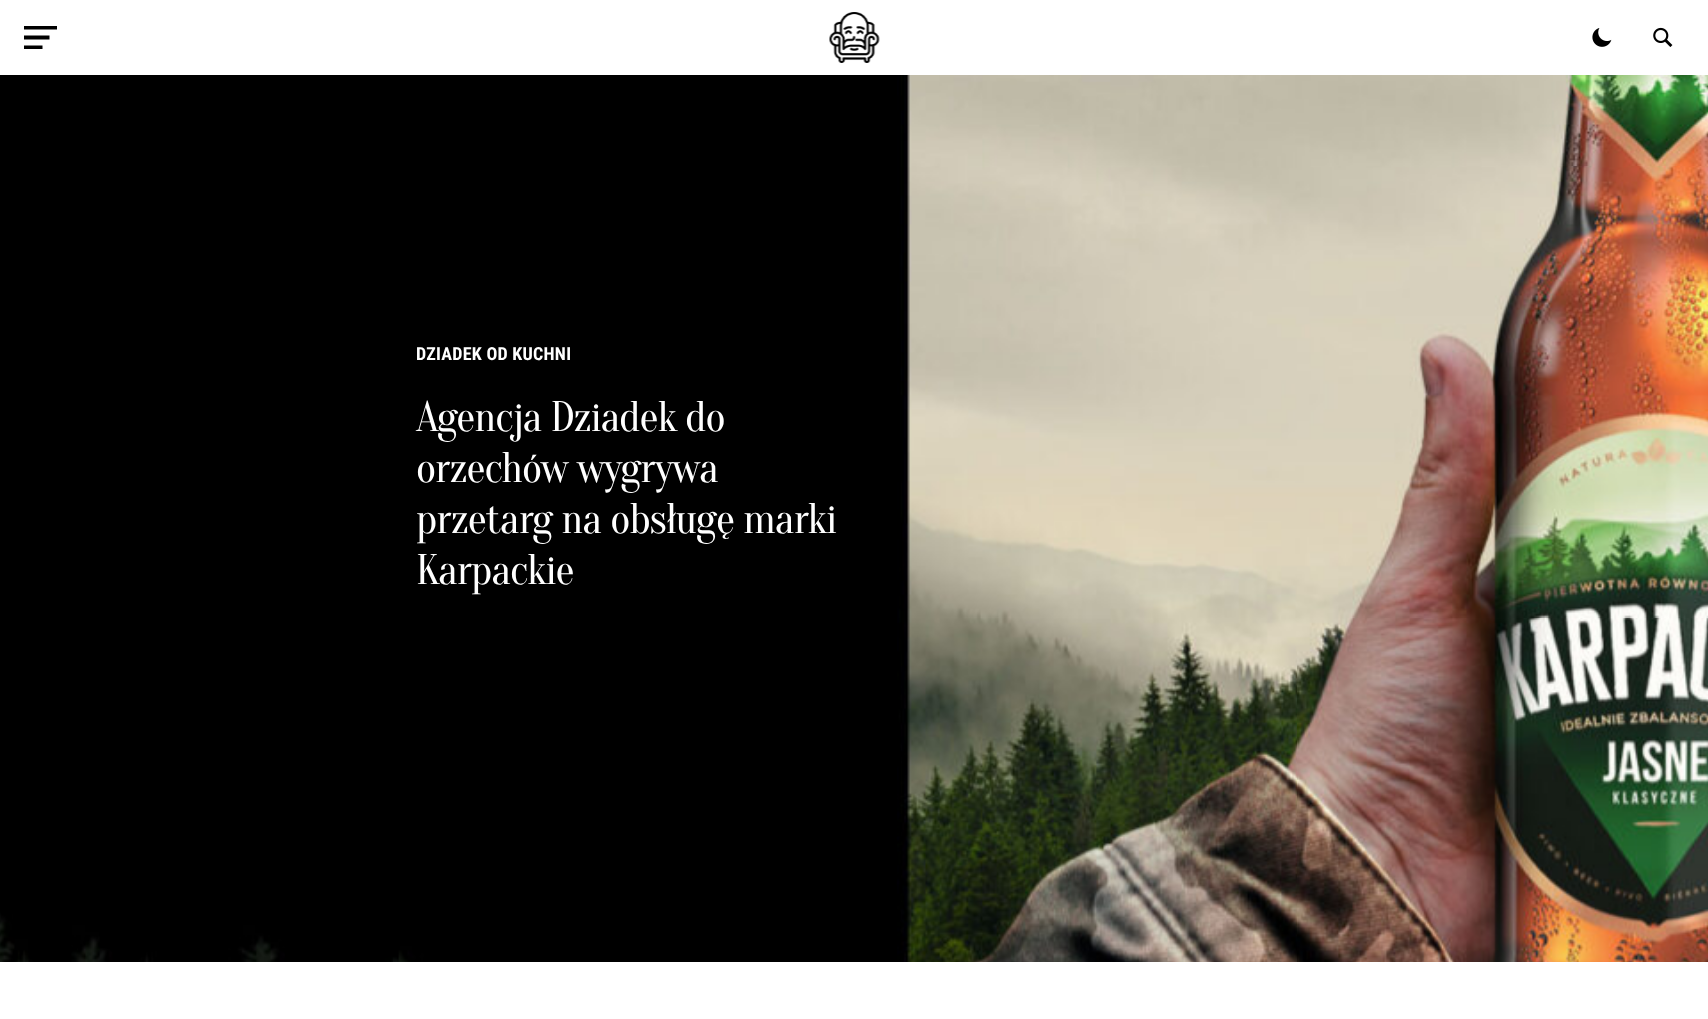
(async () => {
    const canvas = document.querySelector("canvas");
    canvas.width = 1708;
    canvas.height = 1019;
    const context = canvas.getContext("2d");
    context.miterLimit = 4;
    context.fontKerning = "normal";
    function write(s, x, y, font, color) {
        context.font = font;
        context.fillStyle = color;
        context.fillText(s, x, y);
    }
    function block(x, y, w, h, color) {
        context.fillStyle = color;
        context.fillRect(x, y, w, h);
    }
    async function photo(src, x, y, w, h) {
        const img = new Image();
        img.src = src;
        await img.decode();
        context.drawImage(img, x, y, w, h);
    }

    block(0, 0, 1708, 1019, "rgb(255, 255, 255)");
    context.fillStyle = "rgb(0, 0, 0)";
    context.beginPath();
    context.moveTo(24, 26);
    context.lineTo(24, 29.5);
    context.lineTo(57, 29.5);
    context.lineTo(57, 26);
    context.closePath();
    context.moveTo(24, 35.5);
    context.lineTo(24, 39.5);
    context.lineTo(49.5, 39.5);
    context.lineTo(49.5, 35.5);
    context.closePath();
    context.moveTo(24, 49);
    context.lineTo(24, 45.5);
    context.lineTo(42.5, 45.5);
    context.lineTo(42.5, 49);
    context.closePath();
    context.fill();
    await photo("media/1.png", 829, 12, 51, 51);
    await photo("media/2.png", 1592, 28, 20, 19);
    await photo("media/3.png", 1653, 27, 20, 20);
    await photo("media/4.png", 0, 75, 1708, 887);
    context.letterSpacing = "0.25px";
    write("DZIADEK OD KUCHNI", 416, 360, "bold 18px Roboto Condensed", "rgb(255, 255, 255)");
    context.letterSpacing = "-1.1px";
    write("Agencja Dziadek do", 416, 431, "42.75px Oranienbaum", "rgb(255, 255, 255)");
    write("orzechów wygrywa", 416, 482, "42.75px Oranienbaum", "rgb(255, 255, 255)");
    write("przetarg na obsługę marki", 416, 533, "42.75px Oranienbaum", "rgb(255, 255, 255)");
    write("Karpackie", 416, 584, "42.75px Oranienbaum", "rgb(255, 255, 255)");
})();
